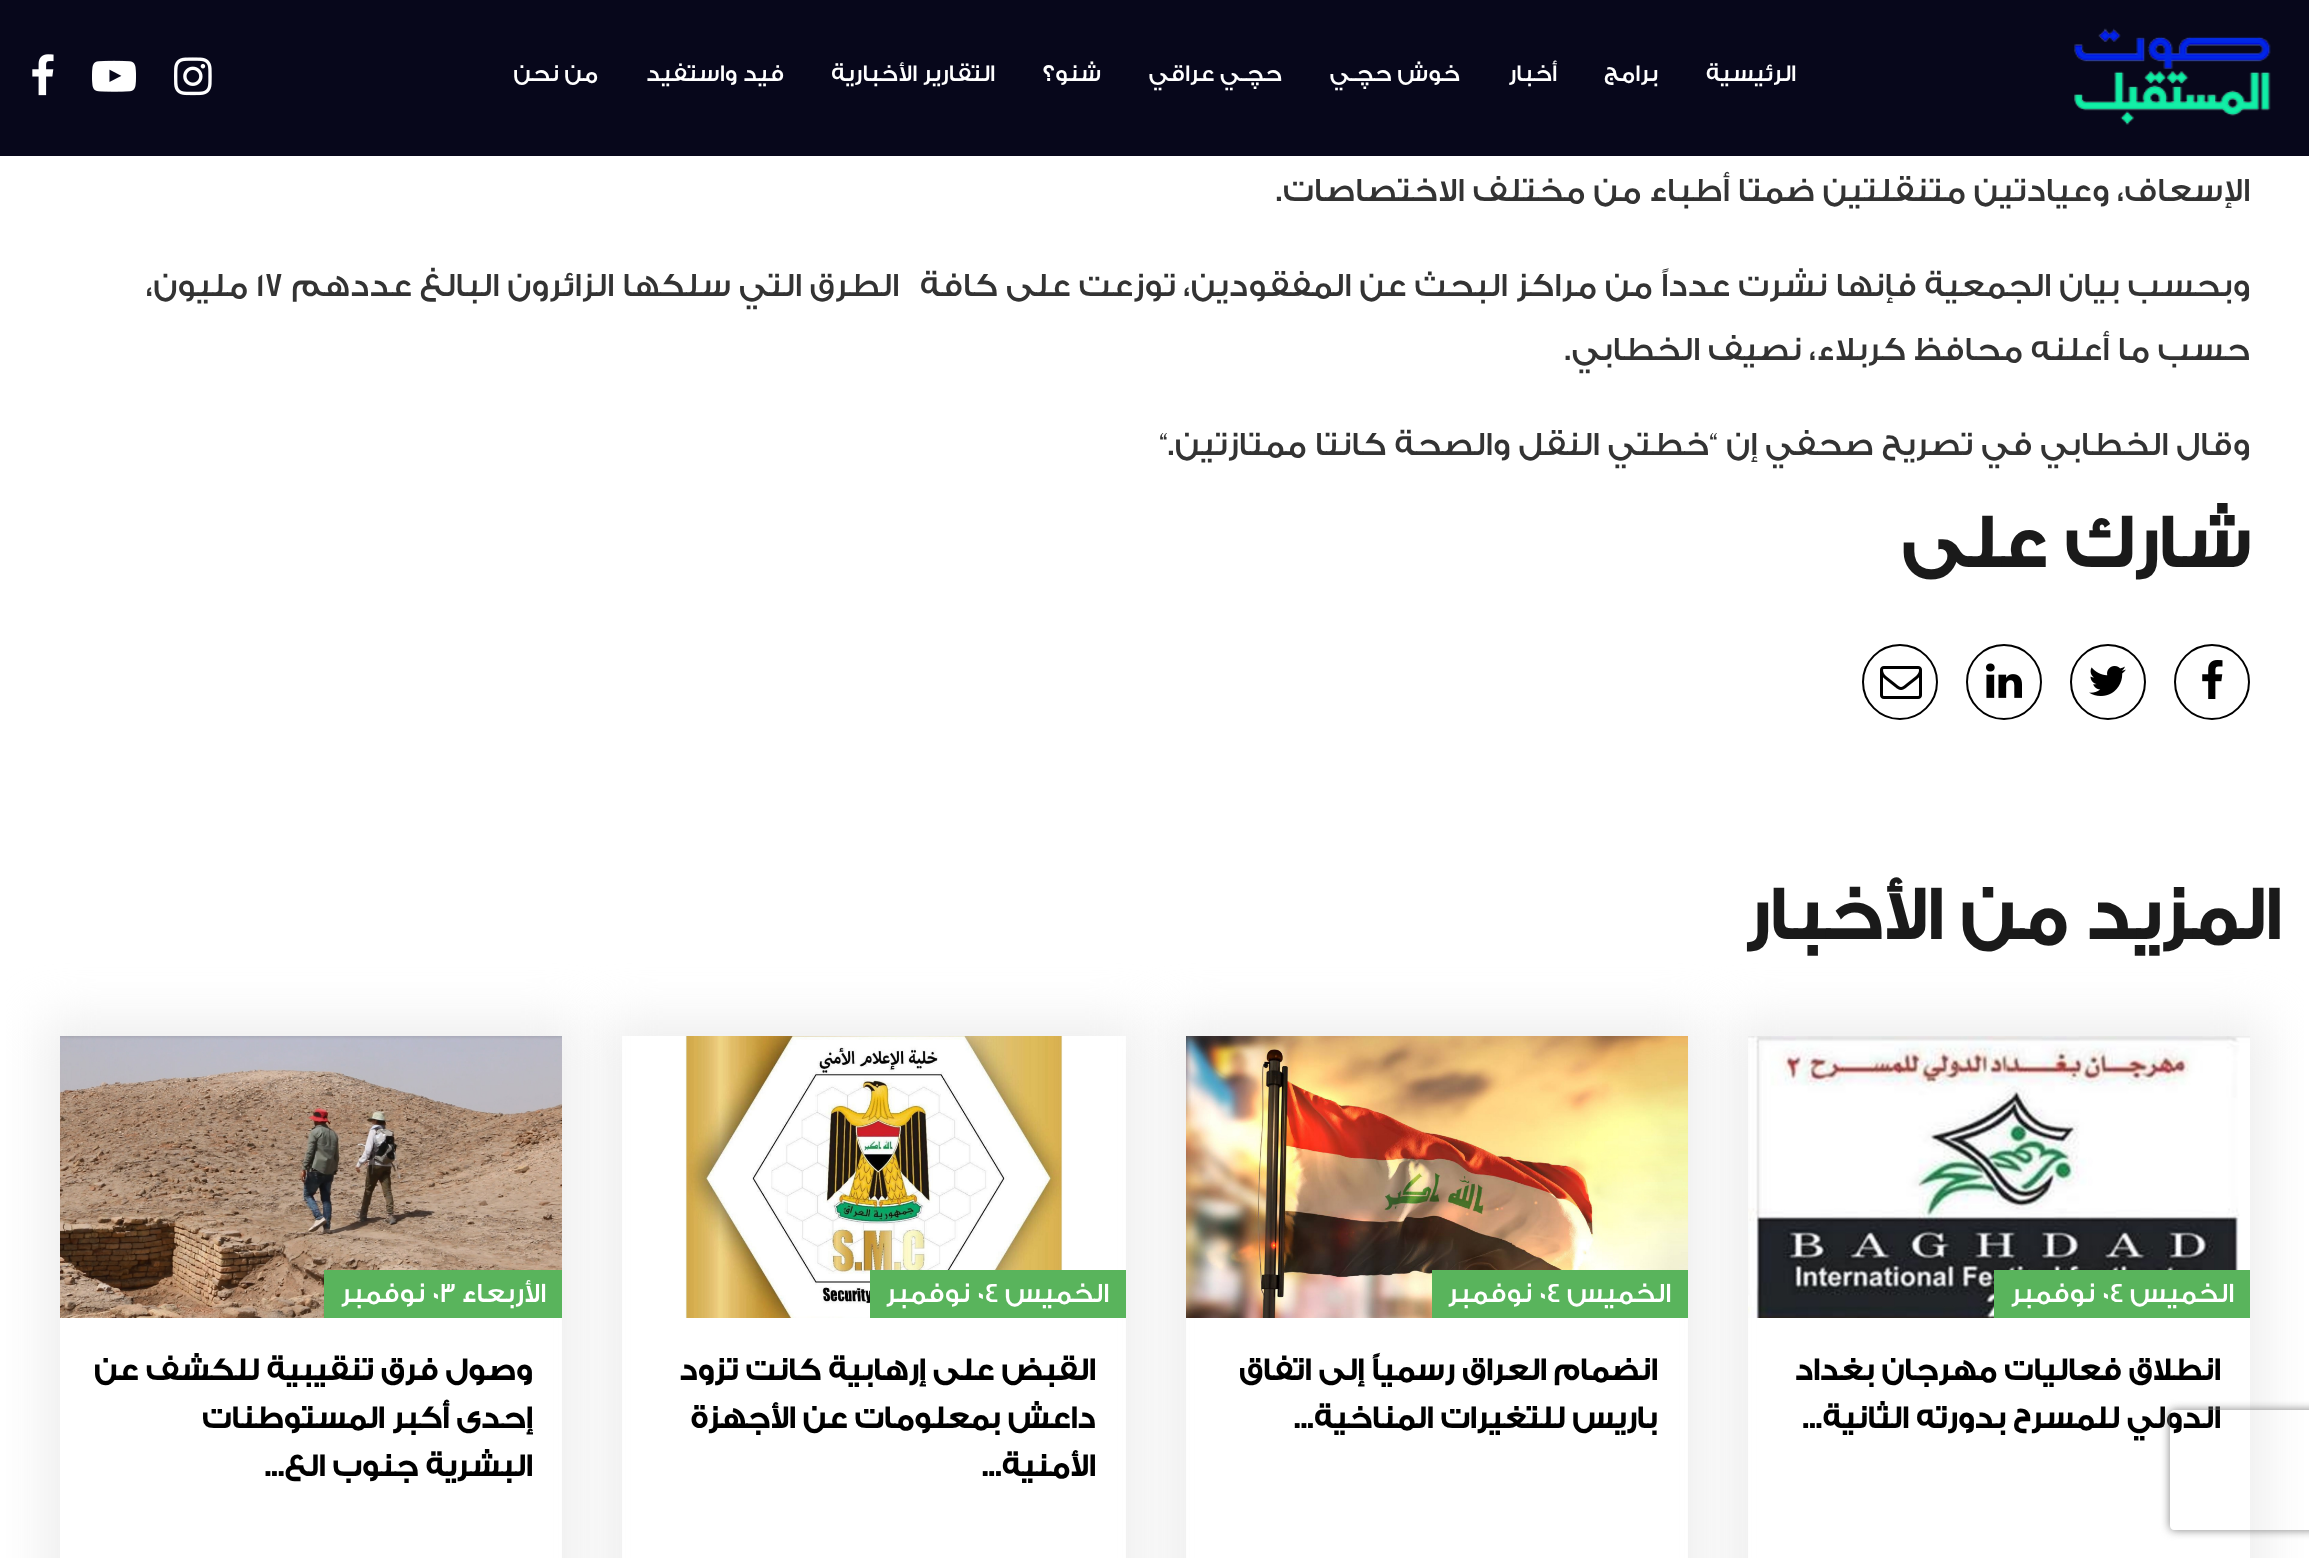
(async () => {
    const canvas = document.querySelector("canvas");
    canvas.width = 2309;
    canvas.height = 1558;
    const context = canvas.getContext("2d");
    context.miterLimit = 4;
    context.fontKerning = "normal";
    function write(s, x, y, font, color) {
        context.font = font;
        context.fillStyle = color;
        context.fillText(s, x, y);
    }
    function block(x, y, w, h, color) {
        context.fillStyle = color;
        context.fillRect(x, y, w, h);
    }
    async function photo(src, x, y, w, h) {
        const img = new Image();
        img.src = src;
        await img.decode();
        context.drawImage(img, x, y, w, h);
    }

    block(0, 0, 2309, 1558, "rgb(255, 255, 255)");
    block(0, 0, 2309, 156, "rgb(7, 7, 27)");
    await photo("media/1.png", 2074, 28, 197, 97);
    context.direction = "rtl";
    write("الرئيسية", 1796, 81, "500 24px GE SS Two", "rgb(255, 255, 255)");
    write("برامج", 1658, 81, "500 24px GE SS Two", "rgb(255, 255, 255)");
    write("أخبار", 1557, 81, "500 24px GE SS Two", "rgb(255, 255, 255)");
    write("خوش حچـي", 1460, 81, "500 24px GE SS Two", "rgb(255, 255, 255)");
    write("حچـي عراقي", 1282, 81, "500 24px GE SS Two", "rgb(255, 255, 255)");
    write("شنو؟", 1101, 81, "500 24px GE SS Two", "rgb(255, 255, 255)");
    write("التقارير الأخبارية", 995, 81, "500 24px GE SS Two", "rgb(255, 255, 255)");
    write("فيد واستفيد", 784, 81, "500 24px GE SS Two", "rgb(255, 255, 255)");
    write("من نحن", 598, 81, "500 24px GE SS Two", "rgb(255, 255, 255)");
    await photo("media/2.png", 174, 57, 38, 39);
    await photo("media/3.png", 92, 60, 44, 32);
    await photo("media/4.png", 32, 54, 22, 42);
    write("الإسعاف، وعيادتين متنقلتين ضمتا أطباء من مختلف الاختصاصات.", 2250, 201, "500 34px GE SS Two", "rgb(51, 51, 51)");
    write("وبحسب بيان الجمعية فإنها نشرت عدداً من مراكز البحث عن المفقودين، توزعت على كافة", 2250, 296, "500 34px GE SS Two", "rgb(51, 51, 51)");
    write("الطرق التي سلكها الزائرون البالغ عددهم", 899, 296, "500 34px GE SS Two", "rgb(51, 51, 51)");
    context.direction = "ltr";
    write("١٧", 256, 296, "500 34px GE SS Two", "rgb(51, 51, 51)");
    context.direction = "rtl";
    write("مليون،", 248, 296, "500 34px GE SS Two", "rgb(51, 51, 51)");
    write("حسب ما أعلنه محافظ كربلاء، نصيف الخطابي.", 2250, 360, "500 34px GE SS Two", "rgb(51, 51, 51)");
    write("وقال الخطابي في تصريح صحفي إن “خطتي النقل والصحة كانتا ممتازتين.", 2250, 455, "500 34px GE SS Two", "rgb(51, 51, 51)");
    context.direction = "ltr";
    write("“", 1159, 455, "500 34px GE SS Two", "rgb(51, 51, 51)");
    context.direction = "rtl";
    write("شارك على", 2250, 567, "bold 76px GE SS Two", "rgb(26, 26, 26)");
    context.beginPath();
    context.arc(2212, 682, 37, 0, Math.PI * 2);
    context.strokeStyle = "rgb(0, 0, 0)";
    context.lineWidth = 2;
    context.stroke();
    await photo("media/5.png", 2202, 660, 21, 39);
    context.beginPath();
    context.arc(2108, 682, 37, 0, Math.PI * 2);
    context.stroke();
    await photo("media/6.png", 2089, 666, 37, 30);
    context.beginPath();
    context.arc(2004, 682, 37, 0, Math.PI * 2);
    context.stroke();
    await photo("media/7.png", 1986, 663, 36, 35);
    context.beginPath();
    context.arc(1900, 682, 37, 0, Math.PI * 2);
    context.stroke();
    await photo("media/8.png", 1880, 666, 42, 33);
    write("المزيد من الأخبار", 2280, 939, "bold 76px GE SS Two", "rgb(26, 26, 26)");
    context.save();
    context.beginPath();
    context.moveTo(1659, 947);
    context.lineTo(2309, 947);
    context.lineTo(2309, 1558);
    context.lineTo(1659, 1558);
    context.closePath();
    context.moveTo(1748, 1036);
    context.lineTo(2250, 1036);
    context.lineTo(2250, 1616);
    context.lineTo(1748, 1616);
    context.closePath();
    context.clip("evenodd");
    context.fillStyle = "rgb(238, 238, 238)";
    context.filter = "blur(24px)";
    context.beginPath();
    context.rect(1732, 1020, 534, 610);
    context.fill();
    context.filter = "none";
    context.restore();
    await photo("media/9.png", 1748, 1036, 502, 282);
    block(1994, 1270, 256, 48, "rgb(89, 180, 92)");
    write("الخميس", 2234, 1302, "500 28px GE SS Two", "rgb(255, 255, 255)");
    context.direction = "ltr";
    write("04", 2102, 1302, "500 28px GE SS Two", "rgb(255, 255, 255)");
    context.direction = "rtl";
    write("نوفمبر", 2095, 1302, "500 28px GE SS Two", "rgb(255, 255, 255)");
    write("انطلاق فعاليات مهرجان بغداد", 2220, 1380, "bold 32px GE SS Two", "rgb(0, 0, 0)");
    write("الدولي للمسرح بدورته الثانية...", 2220, 1428, "bold 32px GE SS Two", "rgb(0, 0, 0)");
    context.save();
    context.beginPath();
    context.moveTo(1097, 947);
    context.lineTo(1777, 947);
    context.lineTo(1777, 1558);
    context.lineTo(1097, 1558);
    context.closePath();
    context.moveTo(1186, 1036);
    context.lineTo(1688, 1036);
    context.lineTo(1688, 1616);
    context.lineTo(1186, 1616);
    context.closePath();
    context.clip("evenodd");
    context.fillStyle = "rgb(238, 238, 238)";
    context.filter = "blur(24px)";
    context.beginPath();
    context.rect(1170, 1020, 534, 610);
    context.fill();
    context.filter = "none";
    context.restore();
    await photo("media/10.png", 1186, 1036, 502, 282);
    block(1432, 1270, 256, 48, "rgb(89, 180, 92)");
    write("الخميس", 1671, 1302, "500 28px GE SS Two", "rgb(255, 255, 255)");
    context.direction = "ltr";
    write("04", 1539, 1302, "500 28px GE SS Two", "rgb(255, 255, 255)");
    context.direction = "rtl";
    write("نوفمبر", 1532, 1302, "500 28px GE SS Two", "rgb(255, 255, 255)");
    write("انضمام العراق رسمياً إلى اتفاق", 1657, 1380, "bold 32px GE SS Two", "rgb(0, 0, 0)");
    write("باريس للتغيرات المناخية...", 1657, 1428, "bold 32px GE SS Two", "rgb(0, 0, 0)");
    context.save();
    context.beginPath();
    context.moveTo(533, 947);
    context.lineTo(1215, 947);
    context.lineTo(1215, 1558);
    context.lineTo(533, 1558);
    context.closePath();
    context.moveTo(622, 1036);
    context.lineTo(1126, 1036);
    context.lineTo(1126, 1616);
    context.lineTo(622, 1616);
    context.closePath();
    context.clip("evenodd");
    context.fillStyle = "rgb(238, 238, 238)";
    context.filter = "blur(24px)";
    context.beginPath();
    context.rect(606, 1020, 536, 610);
    context.fill();
    context.filter = "none";
    context.restore();
    await photo("media/11.png", 685, 1036, 378, 282);
    block(870, 1270, 256, 48, "rgb(89, 180, 92)");
    write("الخميس", 1109, 1302, "500 28px GE SS Two", "rgb(255, 255, 255)");
    context.direction = "ltr";
    write("04", 977, 1302, "500 28px GE SS Two", "rgb(255, 255, 255)");
    context.direction = "rtl";
    write("نوفمبر", 970, 1302, "500 28px GE SS Two", "rgb(255, 255, 255)");
    write("القبض على إرهابية كانت تزود", 1095, 1380, "bold 32px GE SS Two", "rgb(0, 0, 0)");
    write("داعش بمعلومات عن الأجهزة", 1095, 1428, "bold 32px GE SS Two", "rgb(0, 0, 0)");
    write("الأمنية...", 1095, 1476, "bold 32px GE SS Two", "rgb(0, 0, 0)");
    context.save();
    context.beginPath();
    context.moveTo(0, 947);
    context.lineTo(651, 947);
    context.lineTo(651, 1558);
    context.lineTo(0, 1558);
    context.closePath();
    context.moveTo(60, 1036);
    context.lineTo(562, 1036);
    context.lineTo(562, 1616);
    context.lineTo(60, 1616);
    context.closePath();
    context.clip("evenodd");
    context.fillStyle = "rgb(238, 238, 238)";
    context.filter = "blur(24px)";
    context.beginPath();
    context.rect(44, 1020, 534, 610);
    context.fill();
    context.filter = "none";
    context.restore();
    await photo("media/12.png", 60, 1036, 502, 282);
    block(324, 1270, 238, 48, "rgb(89, 180, 92)");
    write("الأربعاء", 546, 1302, "500 28px GE SS Two", "rgb(255, 255, 255)");
    context.direction = "ltr";
    write("03", 432, 1302, "500 28px GE SS Two", "rgb(255, 255, 255)");
    context.direction = "rtl";
    write("نوفمبر", 425, 1302, "500 28px GE SS Two", "rgb(255, 255, 255)");
    write("وصول فرق تنقيبية للكشف عن", 532, 1380, "bold 32px GE SS Two", "rgb(0, 0, 0)");
    write("إحدى أكبر المستوطنات", 532, 1428, "bold 32px GE SS Two", "rgb(0, 0, 0)");
    write("البشرية جنوب الع...", 532, 1476, "bold 32px GE SS Two", "rgb(0, 0, 0)");
    context.save();
    context.beginPath();
    context.moveTo(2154, 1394);
    context.lineTo(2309, 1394);
    context.lineTo(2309, 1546);
    context.lineTo(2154, 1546);
    context.closePath();
    context.moveTo(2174, 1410);
    context.lineTo(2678, 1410);
    context.bezierCurveTo(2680, 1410, 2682, 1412, 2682, 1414);
    context.lineTo(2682, 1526);
    context.bezierCurveTo(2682, 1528, 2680, 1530, 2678, 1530);
    context.lineTo(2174, 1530);
    context.bezierCurveTo(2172, 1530, 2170, 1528, 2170, 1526);
    context.lineTo(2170, 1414);
    context.bezierCurveTo(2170, 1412, 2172, 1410, 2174, 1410);
    context.closePath();
    context.clip("evenodd");
    context.fillStyle = "rgb(128, 128, 128)";
    context.filter = "blur(5px)";
    context.beginPath();
    context.roundRect(2170, 1410, 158, 120, 4);
    context.fill();
    context.filter = "none";
    context.restore();
})();
